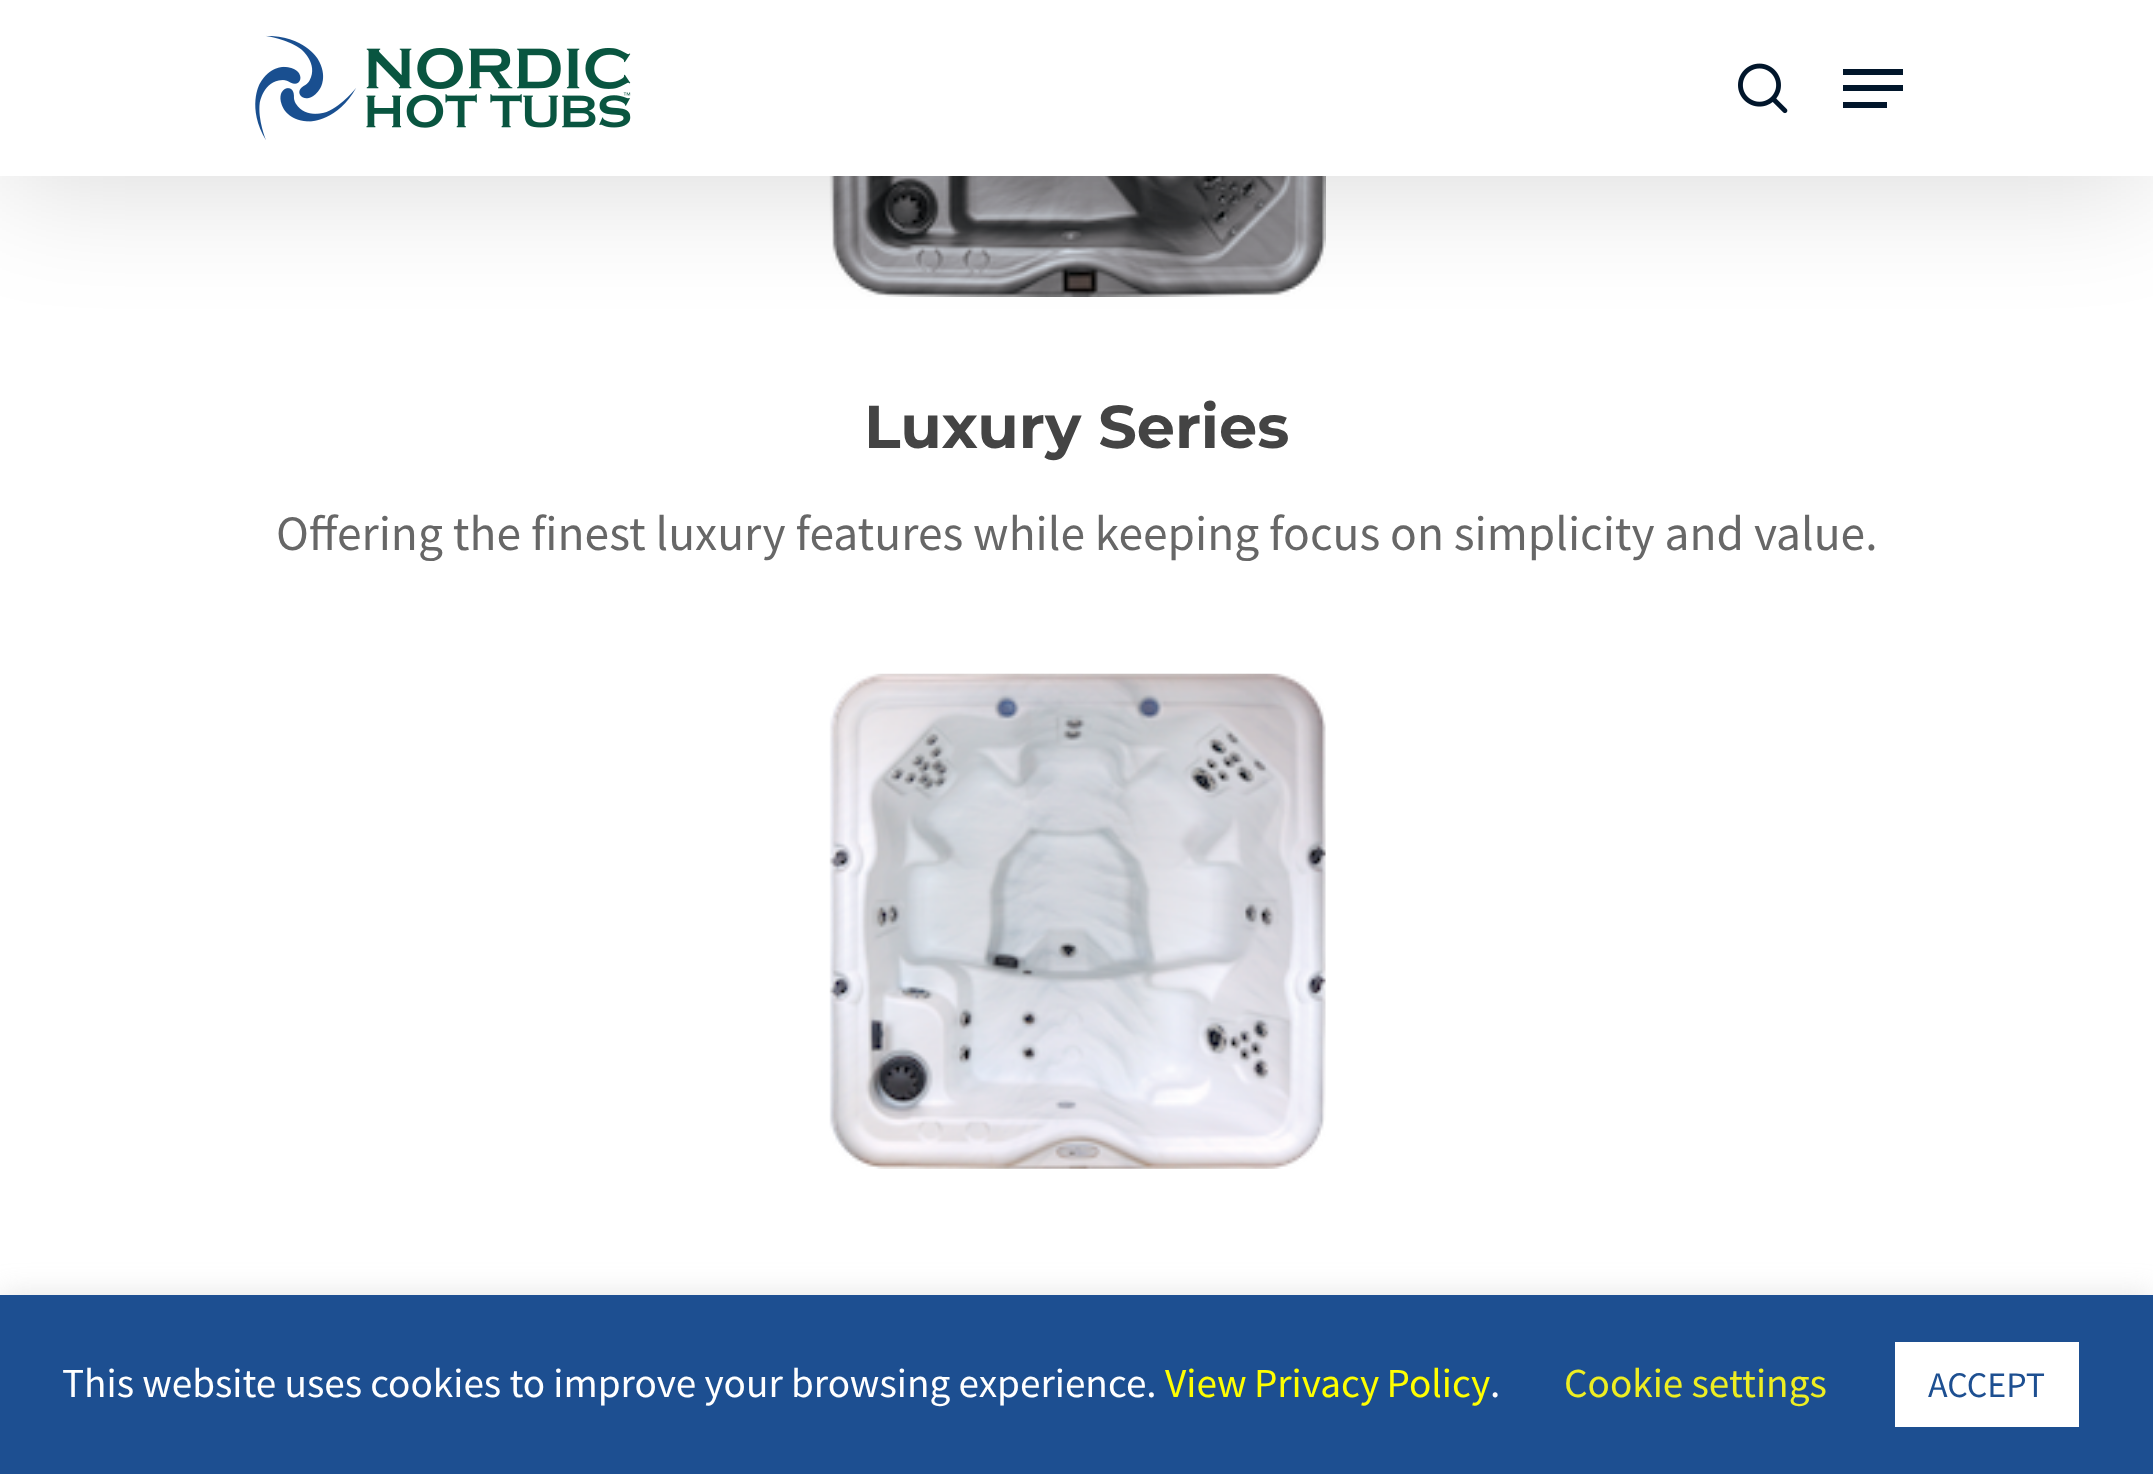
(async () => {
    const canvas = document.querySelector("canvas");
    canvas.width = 2153;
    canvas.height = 1474;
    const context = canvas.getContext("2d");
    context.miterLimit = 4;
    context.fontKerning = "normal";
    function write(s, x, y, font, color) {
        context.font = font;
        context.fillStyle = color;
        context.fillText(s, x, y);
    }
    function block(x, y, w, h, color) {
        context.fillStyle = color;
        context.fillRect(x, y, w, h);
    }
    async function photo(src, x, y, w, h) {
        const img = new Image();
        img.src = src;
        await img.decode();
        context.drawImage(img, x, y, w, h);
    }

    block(0, 0, 2153, 1474, "rgb(255, 255, 255)");
    await photo("media/3.png", 829, 176, 497, 121);
    context.fillStyle = "rgba(0, 0, 0, 0.15)";
    context.filter = "blur(62px)";
    context.beginPath();
    context.rect(0, 8, 2153, 176);
    context.fill();
    context.filter = "none";
    block(0, 0, 2153, 176, "rgb(255, 255, 255)");
    await photo("media/1.png", 255, 35, 376, 105);
    await photo("media/2.png", 1738, 63, 50, 51);
    block(1843, 69, 60, 6, "rgb(1, 22, 43)");
    block(1843, 102, 44, 6, "rgb(1, 22, 43)");
    block(1843, 85, 60, 6, "rgb(1, 22, 43)");
    write("Luxury Series", 864, 448, "bold 60.5px Montserrat", "rgb(68, 68, 68)");
    write("Offering the finest luxury features while keeping focus on simplicity and value.", 276, 550, "49.5px Source Sans Pro", "rgb(103, 103, 103)");
    await photo("media/4.png", 829, 673, 497, 496);
    context.fillStyle = "rgba(172, 171, 171, 0.3)";
    context.filter = "blur(14px)";
    context.beginPath();
    context.rect(0, 1293, 2153, 178);
    context.fill();
    context.filter = "none";
    block(0, 1295, 2153, 179, "rgb(29, 79, 145)");
    write("This website uses cookies to improve your browsing experience.", 62, 1397, "41.25px Source Sans Pro", "rgb(255, 255, 255)");
    context.wordSpacing = "-1px";
    write("View Privacy Policy", 1165, 1397, "41.25px Source Sans Pro", "rgb(255, 255, 0)");
    context.wordSpacing = "0px";
    write(".", 1490, 1397, "41.25px Source Sans Pro", "rgb(255, 255, 255)");
    write("Cookie settings", 1564, 1397, "41.25px Source Sans Pro", "rgb(238, 238, 34)");
    block(1895, 1342, 184, 85, "rgb(255, 255, 255)");
    write("ACCEPT", 1928, 1397, "36px Source Sans Pro", "rgb(29, 79, 145)");
})();
